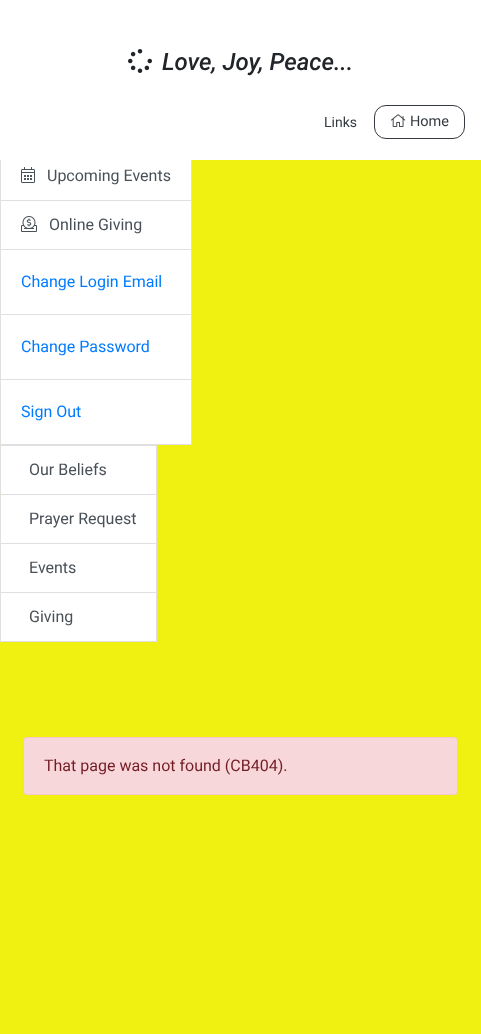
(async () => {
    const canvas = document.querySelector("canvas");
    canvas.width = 481;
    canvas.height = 1034;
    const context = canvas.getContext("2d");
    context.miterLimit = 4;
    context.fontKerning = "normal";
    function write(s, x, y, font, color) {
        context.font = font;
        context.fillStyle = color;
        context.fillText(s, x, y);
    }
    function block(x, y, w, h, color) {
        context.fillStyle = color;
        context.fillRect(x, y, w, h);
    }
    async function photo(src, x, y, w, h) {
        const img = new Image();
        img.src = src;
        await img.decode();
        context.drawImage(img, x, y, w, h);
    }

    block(0, 0, 481, 1034, "rgb(255, 255, 255)");
    await photo("media/1.png", 128, 49, 24, 24);
    write("Love, Joy, Peace...", 162, 70, "italic 500 24px Roboto", "rgb(33, 37, 41)");
    block(0, 160, 481, 874, "rgb(241, 241, 17)");
    block(0, 160, 192, 285, "rgb(255, 255, 255)");
    context.fillStyle = "rgb(223, 223, 223)";
    context.beginPath();
    context.moveTo(192, 152);
    context.lineTo(192, 201);
    context.lineTo(191, 200);
    context.lineTo(191, 152);
    context.closePath();
    context.fill();
    context.fillStyle = "rgba(0, 0, 0, 0.12)";
    context.beginPath();
    context.moveTo(192, 201);
    context.lineTo(0, 201);
    context.lineTo(1, 200);
    context.lineTo(191, 200);
    context.closePath();
    context.fill();
    context.beginPath();
    context.moveTo(0, 201);
    context.lineTo(0, 152);
    context.lineTo(1, 152);
    context.lineTo(1, 200);
    context.closePath();
    context.fill();
    block(0, 152, 192, 8, "rgb(255, 255, 255)");
    write("Links", 324, 127, "14px Roboto", "rgb(52, 58, 64)");
    context.beginPath();
    context.roundRect(374.5, 105.5, 90, 33, 11.5);
    context.strokeStyle = "rgb(52, 58, 64)";
    context.stroke();
    await photo("media/2.png", 391, 114, 15, 13);
    write("Home", 410, 126, "14.5px Roboto", "rgb(52, 58, 64)");
    await photo("media/3.png", 21, 167, 14, 16);
    write("Upcoming Events", 47, 181, "16px Roboto", "rgb(73, 80, 87)");
    context.fillStyle = "rgb(223, 223, 223)";
    context.beginPath();
    context.moveTo(192, 201);
    context.lineTo(192, 250);
    context.lineTo(191, 249);
    context.lineTo(191, 201);
    context.closePath();
    context.fill();
    context.fillStyle = "rgba(0, 0, 0, 0.12)";
    context.beginPath();
    context.moveTo(192, 250);
    context.lineTo(0, 250);
    context.lineTo(1, 249);
    context.lineTo(191, 249);
    context.closePath();
    context.fill();
    context.beginPath();
    context.moveTo(0, 250);
    context.lineTo(0, 201);
    context.lineTo(1, 201);
    context.lineTo(1, 249);
    context.closePath();
    context.fill();
    await photo("media/4.png", 21, 216, 16, 16);
    write("Online Giving", 49, 230, "16px Roboto", "rgb(73, 80, 87)");
    context.fillStyle = "rgb(223, 223, 223)";
    context.beginPath();
    context.moveTo(192, 250);
    context.lineTo(192, 315);
    context.lineTo(191, 314);
    context.lineTo(191, 250);
    context.closePath();
    context.fill();
    context.fillStyle = "rgba(0, 0, 0, 0.12)";
    context.beginPath();
    context.moveTo(192, 315);
    context.lineTo(0, 315);
    context.lineTo(1, 314);
    context.lineTo(191, 314);
    context.closePath();
    context.fill();
    context.beginPath();
    context.moveTo(0, 315);
    context.lineTo(0, 250);
    context.lineTo(1, 250);
    context.lineTo(1, 314);
    context.closePath();
    context.fill();
    write("Change Login Email", 21, 287, "16px Roboto", "rgb(0, 123, 255)");
    context.fillStyle = "rgb(223, 223, 223)";
    context.beginPath();
    context.moveTo(192, 315);
    context.lineTo(192, 380);
    context.lineTo(191, 379);
    context.lineTo(191, 315);
    context.closePath();
    context.fill();
    context.fillStyle = "rgba(0, 0, 0, 0.12)";
    context.beginPath();
    context.moveTo(192, 380);
    context.lineTo(0, 380);
    context.lineTo(1, 379);
    context.lineTo(191, 379);
    context.closePath();
    context.fill();
    context.beginPath();
    context.moveTo(0, 380);
    context.lineTo(0, 315);
    context.lineTo(1, 315);
    context.lineTo(1, 379);
    context.closePath();
    context.fill();
    write("Change Password", 21, 352, "16px Roboto", "rgb(0, 123, 255)");
    context.fillStyle = "rgb(223, 223, 223)";
    context.beginPath();
    context.moveTo(192, 380);
    context.lineTo(192, 445);
    context.lineTo(191, 444);
    context.lineTo(191, 380);
    context.closePath();
    context.fill();
    context.fillStyle = "rgba(0, 0, 0, 0.12)";
    context.beginPath();
    context.moveTo(192, 445);
    context.lineTo(0, 445);
    context.lineTo(1, 444);
    context.lineTo(191, 444);
    context.closePath();
    context.fill();
    context.beginPath();
    context.moveTo(0, 445);
    context.lineTo(0, 380);
    context.lineTo(1, 380);
    context.lineTo(1, 444);
    context.closePath();
    context.fill();
    write("Sign Out", 21, 417, "16px Roboto", "rgb(0, 123, 255)");
    context.fillStyle = "rgb(255, 255, 255)";
    context.beginPath();
    context.rect(0.5, 445.5, 156, 49);
    context.fill();
    context.strokeStyle = "rgb(223, 223, 223)";
    context.stroke();
    write("Our Beliefs", 29, 475, "16px Roboto", "rgb(73, 80, 87)");
    block(0, 495, 157, 147, "rgb(255, 255, 255)");
    context.fillStyle = "rgb(223, 223, 223)";
    context.beginPath();
    context.moveTo(157, 495);
    context.lineTo(157, 544);
    context.lineTo(156, 543);
    context.lineTo(156, 495);
    context.closePath();
    context.fill();
    context.fillStyle = "rgba(0, 0, 0, 0.12)";
    context.beginPath();
    context.moveTo(157, 544);
    context.lineTo(0, 544);
    context.lineTo(1, 543);
    context.lineTo(156, 543);
    context.closePath();
    context.fill();
    context.beginPath();
    context.moveTo(0, 544);
    context.lineTo(0, 495);
    context.lineTo(1, 495);
    context.lineTo(1, 543);
    context.closePath();
    context.fill();
    write("Prayer Request", 29, 524, "16px Roboto", "rgb(73, 80, 87)");
    context.fillStyle = "rgb(223, 223, 223)";
    context.beginPath();
    context.moveTo(157, 544);
    context.lineTo(157, 593);
    context.lineTo(156, 592);
    context.lineTo(156, 544);
    context.closePath();
    context.fill();
    context.fillStyle = "rgba(0, 0, 0, 0.12)";
    context.beginPath();
    context.moveTo(157, 593);
    context.lineTo(0, 593);
    context.lineTo(1, 592);
    context.lineTo(156, 592);
    context.closePath();
    context.fill();
    context.beginPath();
    context.moveTo(0, 593);
    context.lineTo(0, 544);
    context.lineTo(1, 544);
    context.lineTo(1, 592);
    context.closePath();
    context.fill();
    write("Events", 29, 573, "16px Roboto", "rgb(73, 80, 87)");
    context.fillStyle = "rgb(223, 223, 223)";
    context.beginPath();
    context.moveTo(157, 593);
    context.lineTo(157, 642);
    context.lineTo(156, 641);
    context.lineTo(156, 593);
    context.closePath();
    context.fill();
    context.fillStyle = "rgba(0, 0, 0, 0.12)";
    context.beginPath();
    context.moveTo(157, 642);
    context.lineTo(0, 642);
    context.lineTo(1, 641);
    context.lineTo(156, 641);
    context.closePath();
    context.fill();
    context.beginPath();
    context.moveTo(0, 642);
    context.lineTo(0, 593);
    context.lineTo(1, 593);
    context.lineTo(1, 641);
    context.closePath();
    context.fill();
    write("Giving", 29, 622, "16px Roboto", "rgb(73, 80, 87)");
    context.fillStyle = "rgb(248, 215, 218)";
    context.beginPath();
    context.roundRect(23.5, 737.5, 434, 57, 3.5);
    context.fill();
    context.strokeStyle = "rgb(245, 198, 203)";
    context.stroke();
    write("That page was not found (CB404).", 44, 771, "16px Roboto", "rgb(114, 28, 36)");
})();
